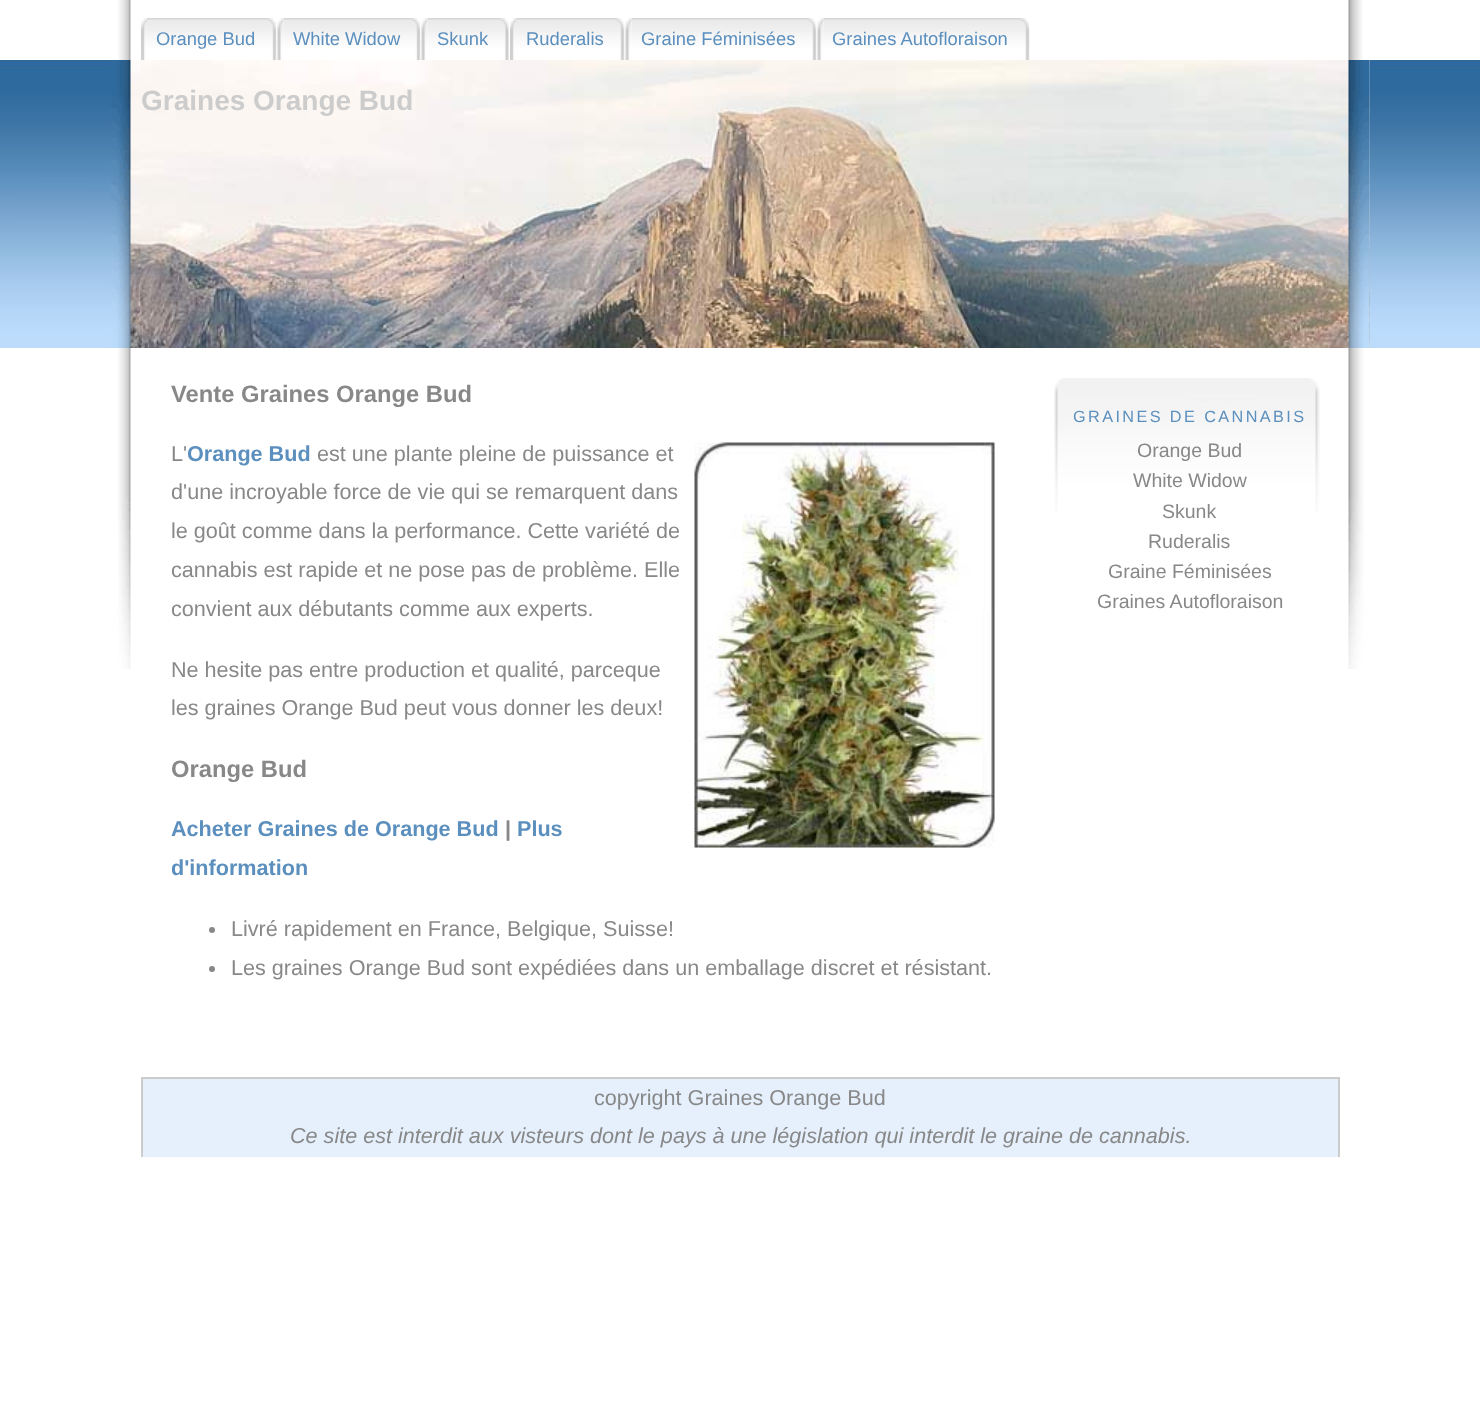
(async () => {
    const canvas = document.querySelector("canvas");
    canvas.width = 1480;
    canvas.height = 1403;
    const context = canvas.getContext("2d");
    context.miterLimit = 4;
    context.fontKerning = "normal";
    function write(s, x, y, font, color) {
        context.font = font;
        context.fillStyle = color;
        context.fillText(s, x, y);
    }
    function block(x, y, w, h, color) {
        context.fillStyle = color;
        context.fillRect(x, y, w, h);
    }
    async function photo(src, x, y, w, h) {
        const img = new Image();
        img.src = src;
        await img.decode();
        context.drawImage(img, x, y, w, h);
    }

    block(0, 0, 1480, 1403, "rgb(255, 255, 255)");
    await photo("media/1.png", 118, 0, 13, 60);
    await photo("media/2.png", 1348, 0, 15, 60);
    await photo("media/3.png", 141, 18, 6, 42);
    await photo("media/4.png", 147, 18, 130, 42);
    write("Orange Bud", 156, 45, "18.4px Liberation Sans", "rgb(91, 143, 190)");
    await photo("media/5.png", 277, 18, 7, 42);
    await photo("media/6.png", 283, 18, 138, 42);
    write("White Widow", 293, 45, "18.4px Liberation Sans", "rgb(91, 143, 190)");
    await photo("media/7.png", 421, 18, 7, 42);
    await photo("media/8.png", 427, 18, 82, 42);
    write("Skunk", 437, 45, "18.4px Liberation Sans", "rgb(91, 143, 190)");
    await photo("media/3.png", 510, 18, 6, 42);
    await photo("media/9.png", 516, 18, 109, 42);
    write("Ruderalis", 526, 45, "18.4px Liberation Sans", "rgb(91, 143, 190)");
    await photo("media/7.png", 625, 18, 7, 42);
    await photo("media/10.png", 631, 18, 186, 42);
    write("Graine Féminisées", 641, 45, "18.4px Liberation Sans", "rgb(91, 143, 190)");
    await photo("media/5.png", 817, 18, 7, 42);
    await photo("media/11.png", 823, 18, 207, 42);
    write("Graines Autofloraison", 832, 45, "18.4px Liberation Sans", "rgb(91, 143, 190)");
    await photo("media/12.png", 0, 60, 1480, 288);
    await photo("media/13.png", 130, 60, 1240, 288);
    await photo("media/14.png", 111, 60, 20, 288);
    await photo("media/15.png", 1348, 60, 22, 288);
    write("Graines Orange Bud", 141, 110, "bold 28px Liberation Sans", "rgb(204, 204, 204)");
    await photo("media/16.png", 118, 348, 13, 321);
    await photo("media/17.png", 1348, 348, 16, 321);
    write("Vente Graines Orange Bud", 171, 402, "bold 23.75px Liberation Sans", "rgb(136, 136, 136)");
    write("L'", 171, 461, "21.6px Liberation Sans", "rgb(136, 136, 136)");
    write("Orange Bud", 187, 461, "bold 21.6px Liberation Sans", "rgb(91, 143, 190)");
    write("est une plante pleine de puissance et", 317, 461, "21.6px Liberation Sans", "rgb(136, 136, 136)");
    await photo("media/18.png", 694, 442, 301, 406);
    write("d'une incroyable force de vie qui se remarquent dans", 171, 499, "21.6px Liberation Sans", "rgb(136, 136, 136)");
    write("le goût comme dans la performance. Cette variété de", 171, 538, "21.6px Liberation Sans", "rgb(136, 136, 136)");
    write("cannabis est rapide et ne pose pas de problème. Elle", 171, 577, "21.6px Liberation Sans", "rgb(136, 136, 136)");
    write("convient aux débutants comme aux experts.", 171, 616, "21.6px Liberation Sans", "rgb(136, 136, 136)");
    write("Ne hesite pas entre production et qualité, parceque", 171, 677, "21.6px Liberation Sans", "rgb(136, 136, 136)");
    write("les graines Orange Bud peut vous donner les deux!", 171, 715, "21.6px Liberation Sans", "rgb(136, 136, 136)");
    write("Orange Bud", 171, 777, "bold 23.75px Liberation Sans", "rgb(136, 136, 136)");
    write("Acheter Graines de Orange Bud", 171, 836, "bold 21.6px Liberation Sans", "rgb(91, 143, 190)");
    write("|", 505, 836, "bold 21.6px Liberation Sans", "rgb(136, 136, 136)");
    write("Plus", 517, 836, "bold 21.6px Liberation Sans", "rgb(91, 143, 190)");
    write("d'information", 171, 875, "bold 21.6px Liberation Sans", "rgb(91, 143, 190)");
    context.fillStyle = "rgb(136, 136, 136)";
    context.beginPath();
    context.arc(212, 930, 3, 0, Math.PI * 2);
    context.fill();
    write("Livré rapidement en France, Belgique, Suisse!", 231, 936, "21.6px Liberation Sans", "rgb(136, 136, 136)");
    context.beginPath();
    context.arc(212, 969, 3, 0, Math.PI * 2);
    context.fill();
    write("Les graines Orange Bud sont expédiées dans un emballage discret et résistant.", 231, 975, "21.6px Liberation Sans", "rgb(136, 136, 136)");
    await photo("media/19.png", 1054, 378, 266, 134);
    context.letterSpacing = "2.4px";
    write("GRAINES DE CANNABIS", 1073, 422, "16.25px Liberation Sans", "rgb(91, 143, 190)");
    context.letterSpacing = "0px";
    write("Orange Bud", 1137, 457, "19.5px Liberation Sans", "rgb(136, 136, 136)");
    write("White Widow", 1133, 487, "19.5px Liberation Sans", "rgb(136, 136, 136)");
    write("Skunk", 1162, 518, "19.5px Liberation Sans", "rgb(136, 136, 136)");
    write("Ruderalis", 1148, 548, "19.5px Liberation Sans", "rgb(136, 136, 136)");
    write("Graine Féminisées", 1108, 578, "19.5px Liberation Sans", "rgb(136, 136, 136)");
    write("Graines Autofloraison", 1097, 608, "19.5px Liberation Sans", "rgb(136, 136, 136)");
    block(143, 1079, 1195, 78, "rgb(229, 240, 252)");
    block(141, 1077, 1199, 2, "rgb(204, 204, 204)");
    block(1338, 1077, 2, 80, "rgb(204, 204, 204)");
    block(141, 1077, 2, 80, "rgb(204, 204, 204)");
    write("copyright Graines Orange Bud", 594, 1105, "21.6px Liberation Sans", "rgb(136, 136, 136)");
    write("Ce site est interdit aux visteurs dont le pays à une législation qui interdit le graine de cannabis.", 290, 1143, "italic 21.6px Liberation Sans", "rgb(136, 136, 136)");
})();
